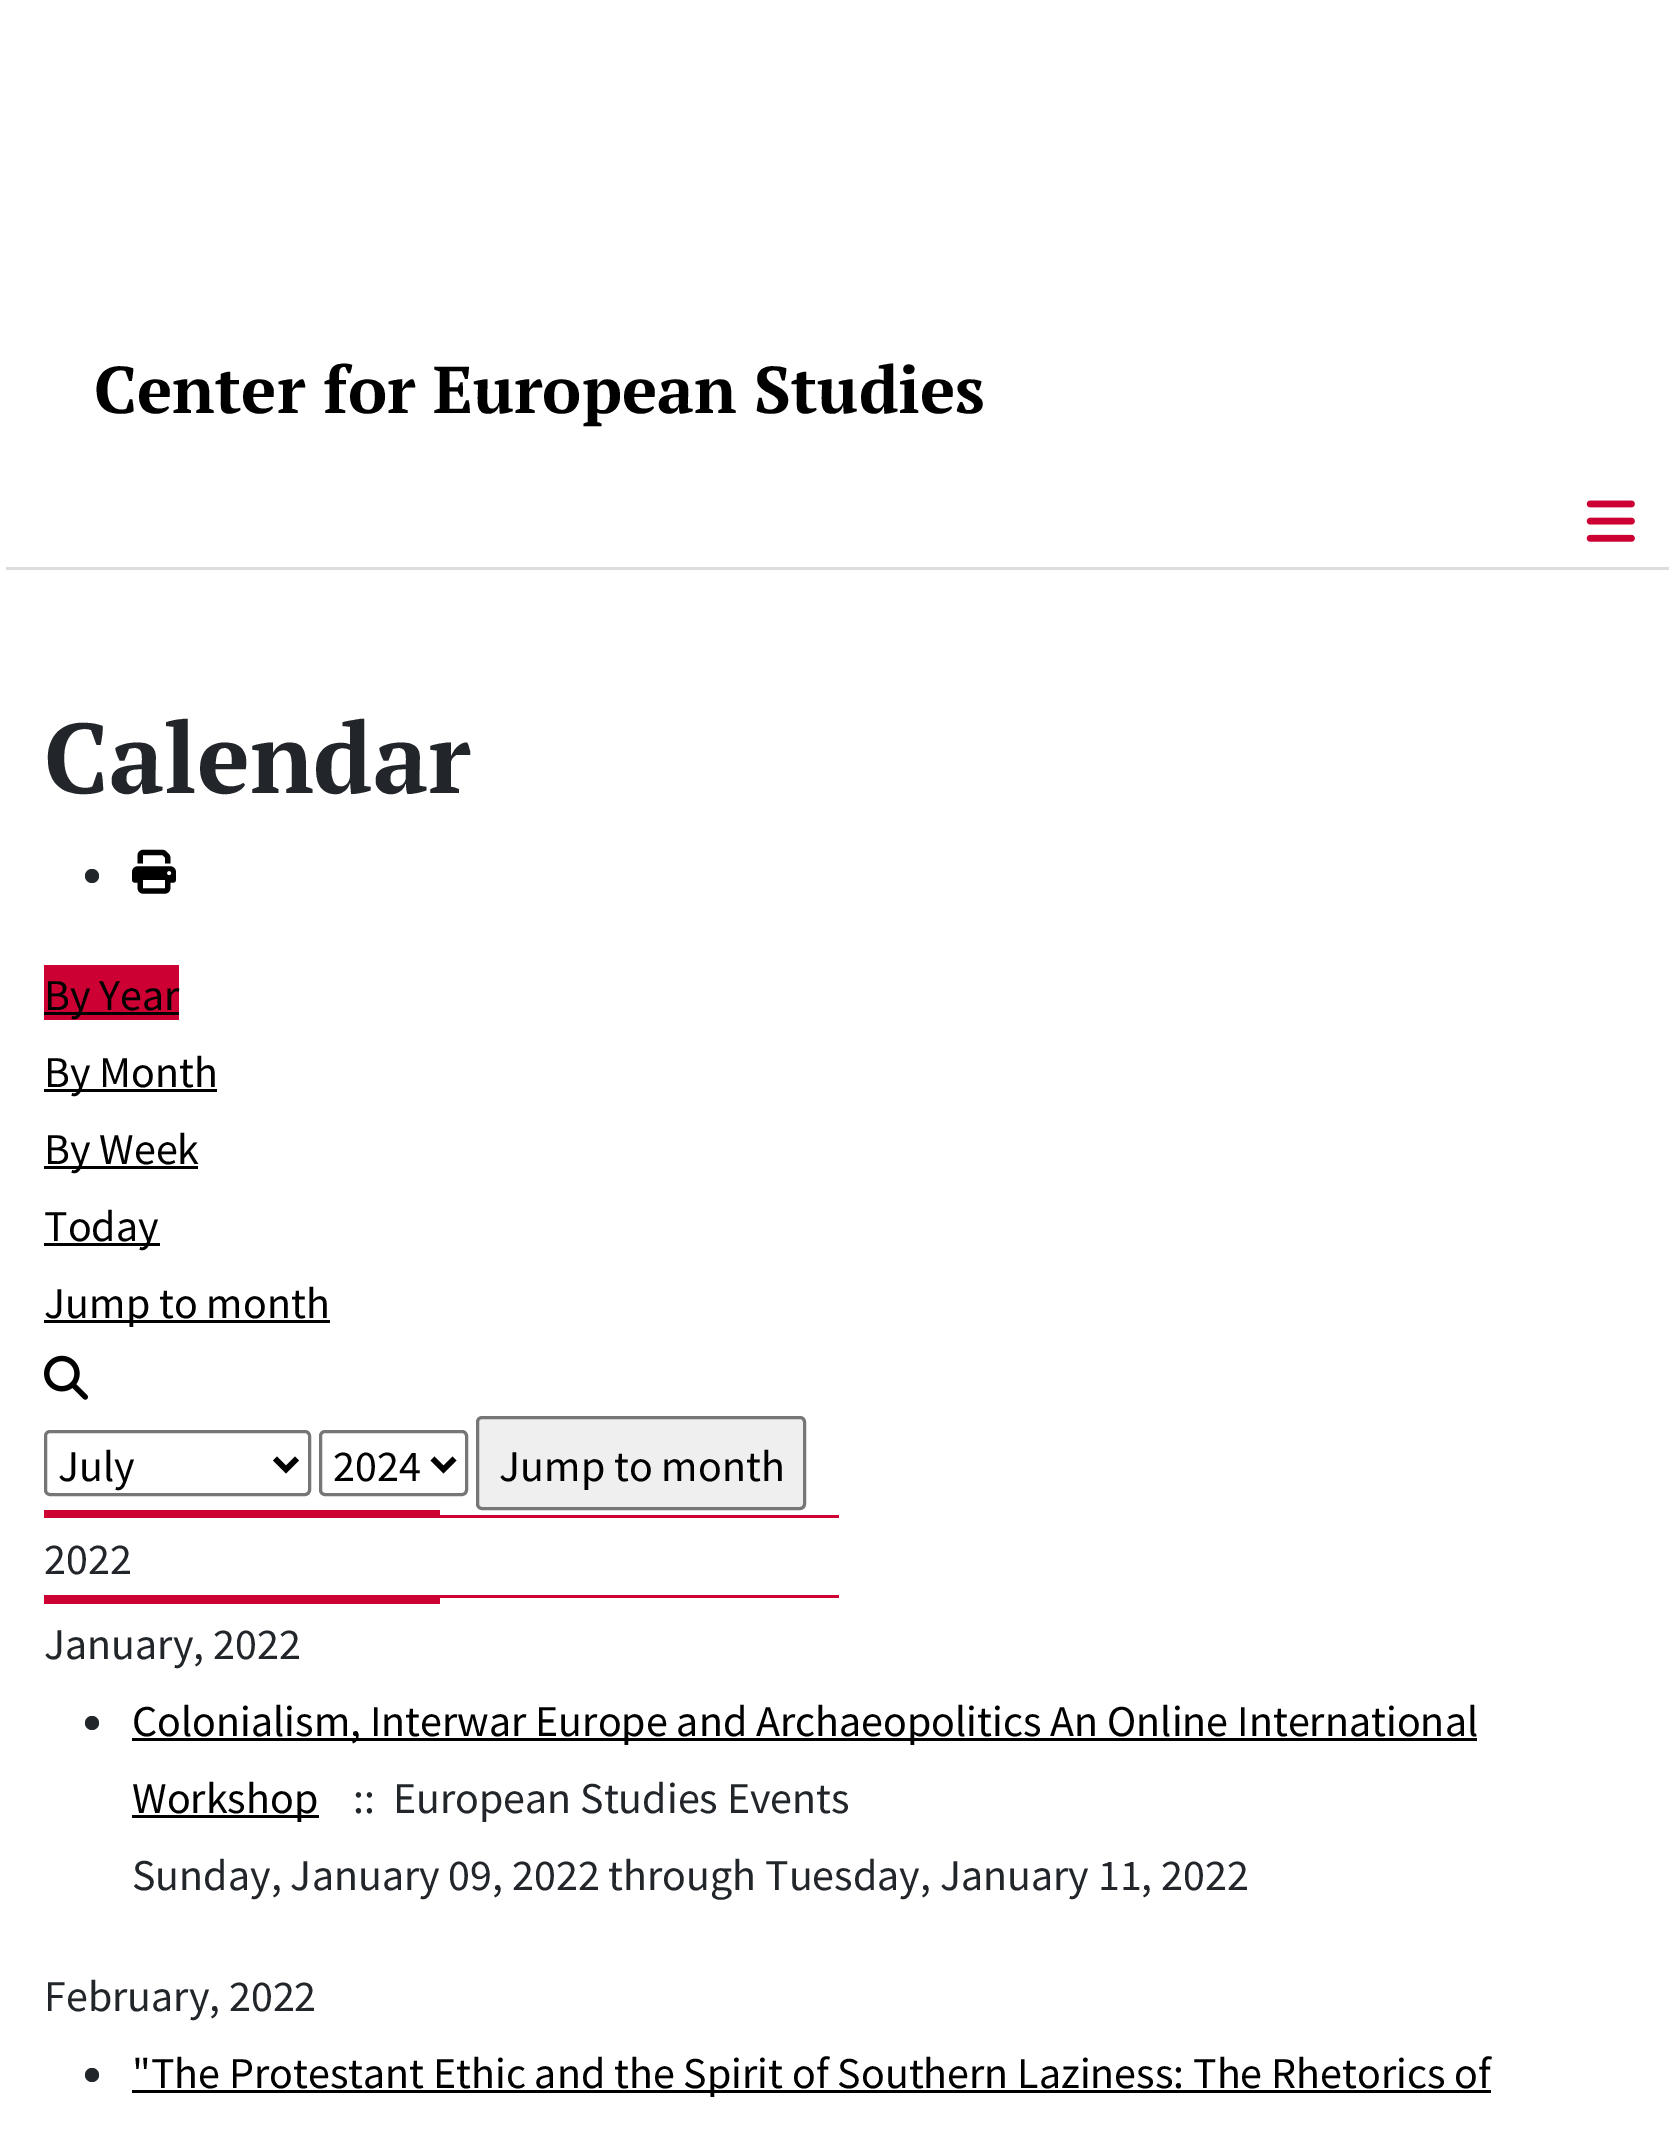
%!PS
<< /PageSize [1674 2136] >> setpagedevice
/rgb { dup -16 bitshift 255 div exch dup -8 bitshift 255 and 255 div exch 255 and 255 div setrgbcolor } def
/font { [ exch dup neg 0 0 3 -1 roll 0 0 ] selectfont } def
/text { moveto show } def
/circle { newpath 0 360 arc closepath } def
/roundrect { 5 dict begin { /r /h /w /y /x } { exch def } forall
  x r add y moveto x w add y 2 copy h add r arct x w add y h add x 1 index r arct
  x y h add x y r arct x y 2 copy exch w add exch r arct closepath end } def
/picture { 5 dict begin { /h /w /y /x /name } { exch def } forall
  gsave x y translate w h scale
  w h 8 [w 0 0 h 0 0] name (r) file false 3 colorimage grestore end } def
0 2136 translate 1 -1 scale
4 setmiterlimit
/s1 { /PTSerif-Bold 66 font 16#000000 rgb } def
/s2 { /PTSerif-Bold 99 font 16#22262A rgb } def
/s3 { /SourceSansPro-Regular 44 font 16#000000 rgb } def
/s4 { /SourceSansPro-Regular 44 font 16#22262A rgb } def
16#FFFFFF rgb
0 0 1674 2136 rectfill
s1
(Center for European Studies) 94 413 text
16#DDDDDD rgb
6 567 1663 3 rectfill
(pic1.raw) 1586 500 49 42 picture
s2
(Calendar) 44 793 text
92 876 7 circle fill
(pic2.raw) 132 849 44 45 picture
16#CC0033 rgb
44 965 135 55 rectfill
16#000000 rgb
44 1012 135 3 rectfill
s3
(By Year) 44 1010 text
44 1089 173 3 rectfill
(By Month) 44 1087 text
44 1166 154 3 rectfill
(By Week) 44 1164 text
44 1243 116 3 rectfill
(Today) 44 1241 text
44 1320 286 3 rectfill
(Jump to month) 44 1318 text
(pic3.raw) 44 1355 44 45 picture
16#767676 rgb
3 setlinewidth
45.5 1431.5 264 63 4.5 roundrect stroke
16#000000 rgb
5.5 setlinewidth
275 1458.5 moveto 286 1469.5 lineto 297 1458.5 lineto stroke
(July) 58 1481 text
16#767676 rgb
3 setlinewidth
320.5 1431.5 146 63 4.5 roundrect stroke
16#000000 rgb
5.5 setlinewidth
432.5 1458.5 moveto 443.5 1469.5 lineto 454.5 1458.5 lineto stroke
(2024) 333 1481 text
16#EFEFEF rgb
477.5 1417.5 327 91 4.5 roundrect gsave fill grestore
16#767676 rgb
3 setlinewidth
stroke
s3
(Jump to month) 499 1481 text
16#CC0033 rgb
44 1510 396 5 rectfill
44 1515 795 3 rectfill
44 1595 795 3 rectfill
s4
(2022) 44 1574 text
16#CC0033 rgb
44 1598 396 6 rectfill
s4
(January, 2022) 44 1659 text
92 1723 7 circle fill
16#000000 rgb
132 1738 1345 3 rectfill
(Colonialism, Interwar Europe and Archaeopolitics An Online International) 132 1736 text
132 1815 187 3 rectfill
(Workshop) 132 1813 text
s4
(::  European Studies Events) 353 1813 text
(Sunday, January 09, 2022 through Tuesday, January 11, 2022) 132 1890 text
(February, 2022) 44 2011 text
92 2075 7 circle fill
16#000000 rgb
132 2090 1359 3 rectfill
("The Protestant Ethic and the Spirit of Southern Laziness: The Rhetorics of) 132 2088 text
showpage
